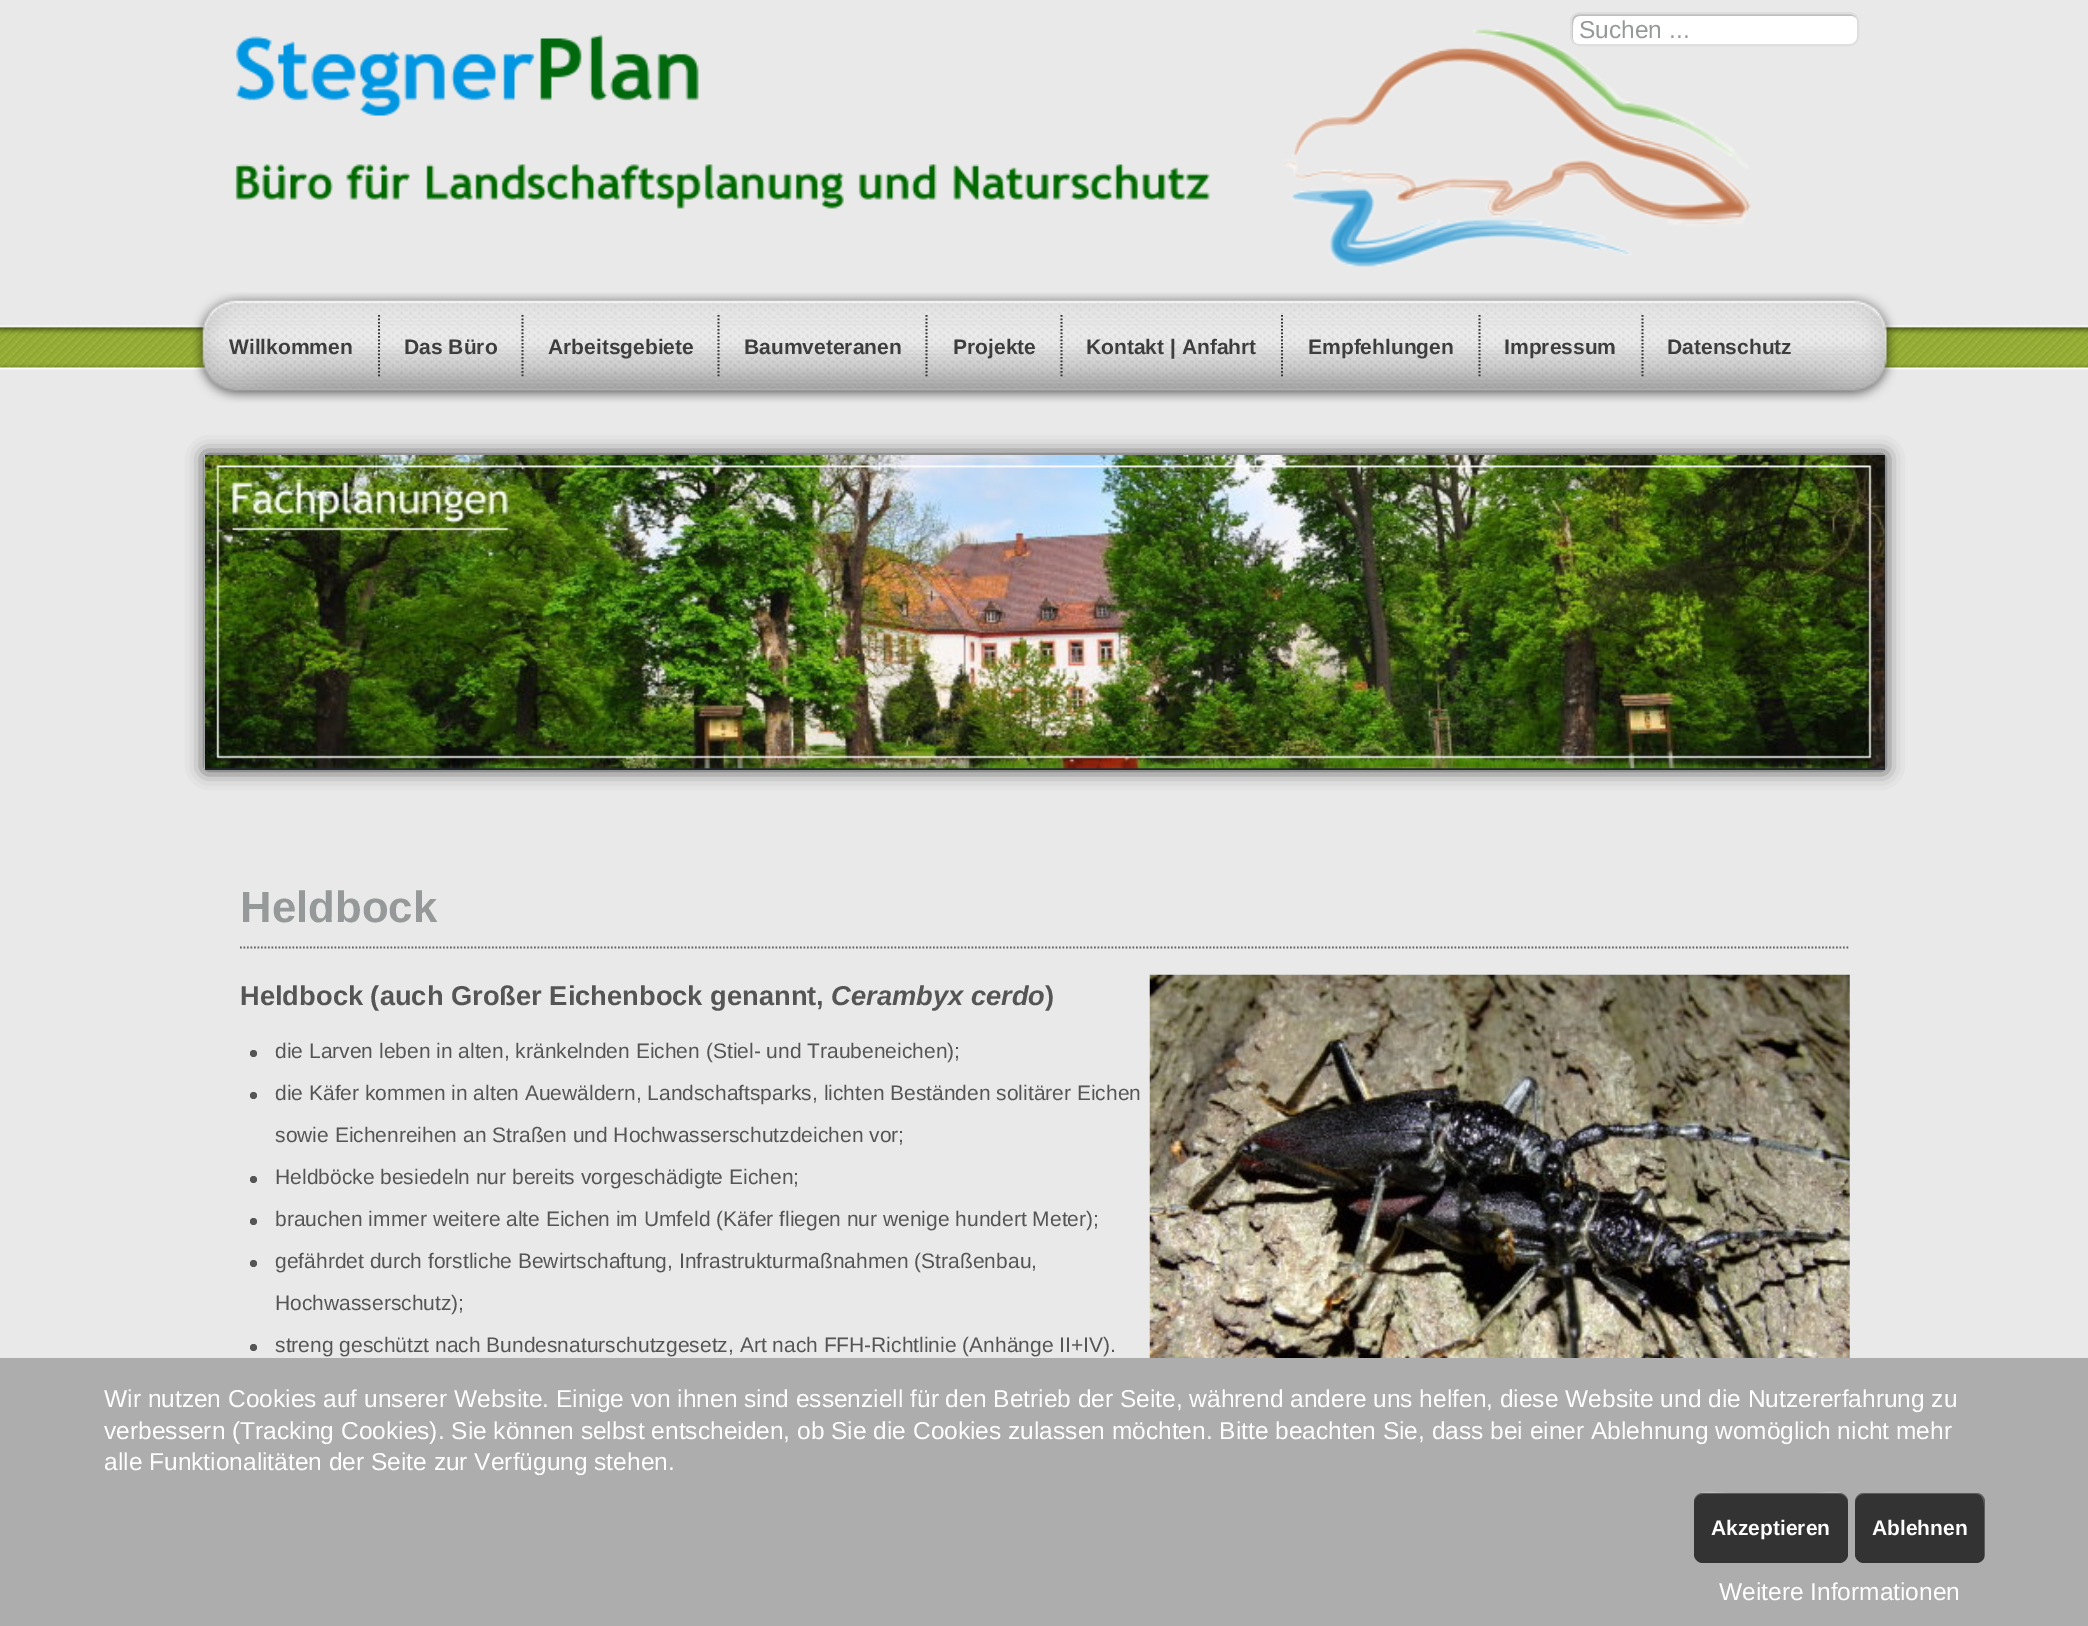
%!PS
<< /PageSize [2088 1626] /PageUsesTransparency true >> setpagedevice
/rgb { dup -16 bitshift 255 div exch dup -8 bitshift 255 and 255 div exch 255 and 255 div setrgbcolor } def
/font { [ exch dup neg 0 0 3 -1 roll 0 0 ] selectfont } def
/text { moveto show } def
/alpha { dup .setfillconstantalpha .setstrokeconstantalpha } def
/circle { newpath 0 360 arc closepath } def
/roundrect { 5 dict begin { /r /h /w /y /x } { exch def } forall
  x r add y moveto x w add y 2 copy h add r arct x w add y h add x 1 index r arct
  x y h add x y r arct x y 2 copy exch w add exch r arct closepath end } def
/shadow { 12 dict begin { /a /b /q /h /w /y /x } { exch def } forall gsave /was 0 def
  9 -2 -9 { dup b mul 4 div /e exch def 1 sub .425 mul 2.718 exch exp 1 add a .99 .min exch div /now exch def
    1 1 now sub 1 was sub div sub alpha /was now def
    w h .min e 2 mul add 0 gt { x e sub y e sub w e 2 mul add h e 2 mul add
      q e add b .6 mul add w h .min 2 div e add .min 0 .max roundrect fill } if } for grestore end } def
/picture { 5 dict begin { /h /w /y /x /name } { exch def } forall
  gsave x y translate w h scale
  w h 8 [w 0 0 h 0 0] name (r) file false 3 colorimage grestore end } def
0 .pushpdf14devicefilter
0 1626 translate 1 -1 scale
4 setmiterlimit
/s1 { /LiberationSans-Regular 24.5 font 16#969999 rgb } def
/s2 { /LiberationSans-Bold 21 font 16#3D3D3D rgb } def
/s3 { /LiberationSans-Bold 43.75 font 16#969999 rgb } def
/s4 { /LiberationSans-Bold 27.3 font 16#555555 rgb } def
/s5 { /LiberationSans-BoldItalic 27.3 font 16#555555 rgb } def
/s6 { /LiberationSans-Regular 21 font 16#555555 rgb } def
/s7 { /LiberationSans-Regular 24.5 font 16#FFFFFF rgb } def
/s8 { /LiberationSans-Bold 21 font 16#FFFFFF rgb } def
16#E9E9E9 rgb
0 0 2088 1626 rectfill
(pic1.raw) 0 292 2088 111 picture
(pic2.raw) 235 29 1516 238 picture
16#FFFFFF rgb
1570 12 289 34 9 roundrect fill
16#C0C0C0 rgb
1580 16 moveto 1852 16 lineto 1854 16 1855 17 1857 19 curveto 1856 16 1853 14 1850 14 curveto 1579 14 lineto 1575 14 1572 17 1572 21 curveto 1572 37 lineto 1572 39 1573 41 1574 42 curveto 1572 38 1573 34 1573 30 curveto 1573 25 1572 16 1580 16 curveto closepath fill
16#DEDEDE rgb
2 setlinewidth
1571 13 287 32 8 roundrect stroke
s1
(Suchen ...) 1579 38 text
s2
(Willkommen) 229 354 text
16#333333 rgb
1.8 setlinewidth
[1.75 1.75] 0 setdash
379 315 moveto 379 378 lineto stroke
s2
(Das Büro) 404 354 text
16#333333 rgb
522.5 315 moveto 522.5 378 lineto stroke
s2
(Arbeitsgebiete) 548 354 text
16#333333 rgb
718.5 315 moveto 718.5 378 lineto stroke
s2
(Baumveteranen) 744 354 text
16#333333 rgb
926.5 315 moveto 926.5 378 lineto stroke
s2
(Projekte) 953 354 text
16#333333 rgb
1061.5 315 moveto 1061.5 378 lineto stroke
s2
(Kontakt | Anfahrt) 1086 354 text
16#333333 rgb
1282 315 moveto 1282 378 lineto stroke
s2
(Empfehlungen) 1308 354 text
16#333333 rgb
1479.5 315 moveto 1479.5 378 lineto stroke
s2
(Impressum) 1504 354 text
16#333333 rgb
1642.5 315 moveto 1642.5 378 lineto stroke
s2
(Datenschutz) 1667 354 text
16#333333 rgb
205 455 1680 315 0 9 1 shadow
16#202834 rgb
205 455 1680 315 rectfill
(pic3.raw) 204 455 1681 314 picture
16#666666 rgb
240 947.5 moveto 1850 947.5 lineto stroke
s3
(Heldbock) 240 922 text
s4
(Heldbock \(auch Großer Eichenbock genannt,) 240 1005 text
s5
(Cerambyx cerdo) 831 1005 text
s4
(\)) 1045 1005 text
(pic4.raw) 1149 974 701 384 picture
253.5 1053.5 3.5 circle fill
s6
(die Larven leben in alten, kränkelnden Eichen \(Stiel- und Traubeneichen\);) 275 1058 text
253.5 1095.5 3.5 circle fill
(die Käfer kommen in alten Auewäldern, Landschaftsparks, lichten Beständen solitärer Eichen) 275 1100 text
(sowie Eichenreihen an Straßen und Hochwasserschutzdeichen vor;) 275 1142 text
253.5 1179.5 3.5 circle fill
(Heldböcke besiedeln nur bereits vorgeschädigte Eichen;) 275 1184 text
253.5 1221.5 3.5 circle fill
(brauchen immer weitere alte Eichen im Umfeld \(Käfer fliegen nur wenige hundert Meter\);) 275 1226 text
253.5 1263.5 3.5 circle fill
(gefährdet durch forstliche Bewirtschaftung, Infrastrukturmaßnahmen \(Straßenbau,) 275 1268 text
(Hochwasserschutz\);) 275 1310 text
253.5 1347.5 3.5 circle fill
(streng geschützt nach Bundesnaturschutzgesetz, Art nach FFH-Richtlinie \(Anhänge II+IV\).) 275 1352 text
16#ADADAD rgb
0 1358 2088 268 rectfill
s7
(Wir nutzen Cookies auf unserer Website. Einige von ihnen sind essenziell für den Betrieb der Seite, während andere uns helfen, diese Website und die Nutzererfahrung zu) 104 1407 text
(verbessern \(Tracking Cookies\). Sie können selbst entscheiden, ob Sie die Cookies zulassen möchten. Bitte beachten Sie, dass bei einer Ablehnung womöglich nicht mehr) 104 1439 text
(alle Funktionalitäten der Seite zur Verfügung stehen.) 104 1470 text
16#333333 rgb
1694 1493 154 70 9 roundrect fill
0.2 alpha
16#FFFFFF rgb
1703 1494 moveto 1839 1494 lineto 1844 1494 1848 1498 1848 1503 curveto 1848 1487 1825 1493 1816 1493 curveto 1726 1493 lineto 1717 1493 1694 1487 1694 1503 curveto 1694 1498 1698 1494 1703 1494 curveto closepath fill
1 alpha
s8
(Akzeptieren) 1711 1535 text
16#333333 rgb
1855 1493 130 70 9 roundrect fill
0.2 alpha
16#FFFFFF rgb
1864 1494 moveto 1976 1494 lineto 1985 1494 1984 1506 1984 1512 curveto 1984 1559 lineto 1985 1557 1985 1556 1985 1554 curveto 1985 1502 lineto 1985 1497 1981 1493 1976 1493 curveto 1864 1493 lineto 1859 1493 1855 1497 1855 1502 curveto 1855 1503 lineto 1855 1498 1859 1494 1864 1494 curveto closepath fill
1 alpha
(Ablehnen) 1872 1535 text
s7
(Weitere Informationen) 1719 1600 text
.poppdf14devicefilter showpage
